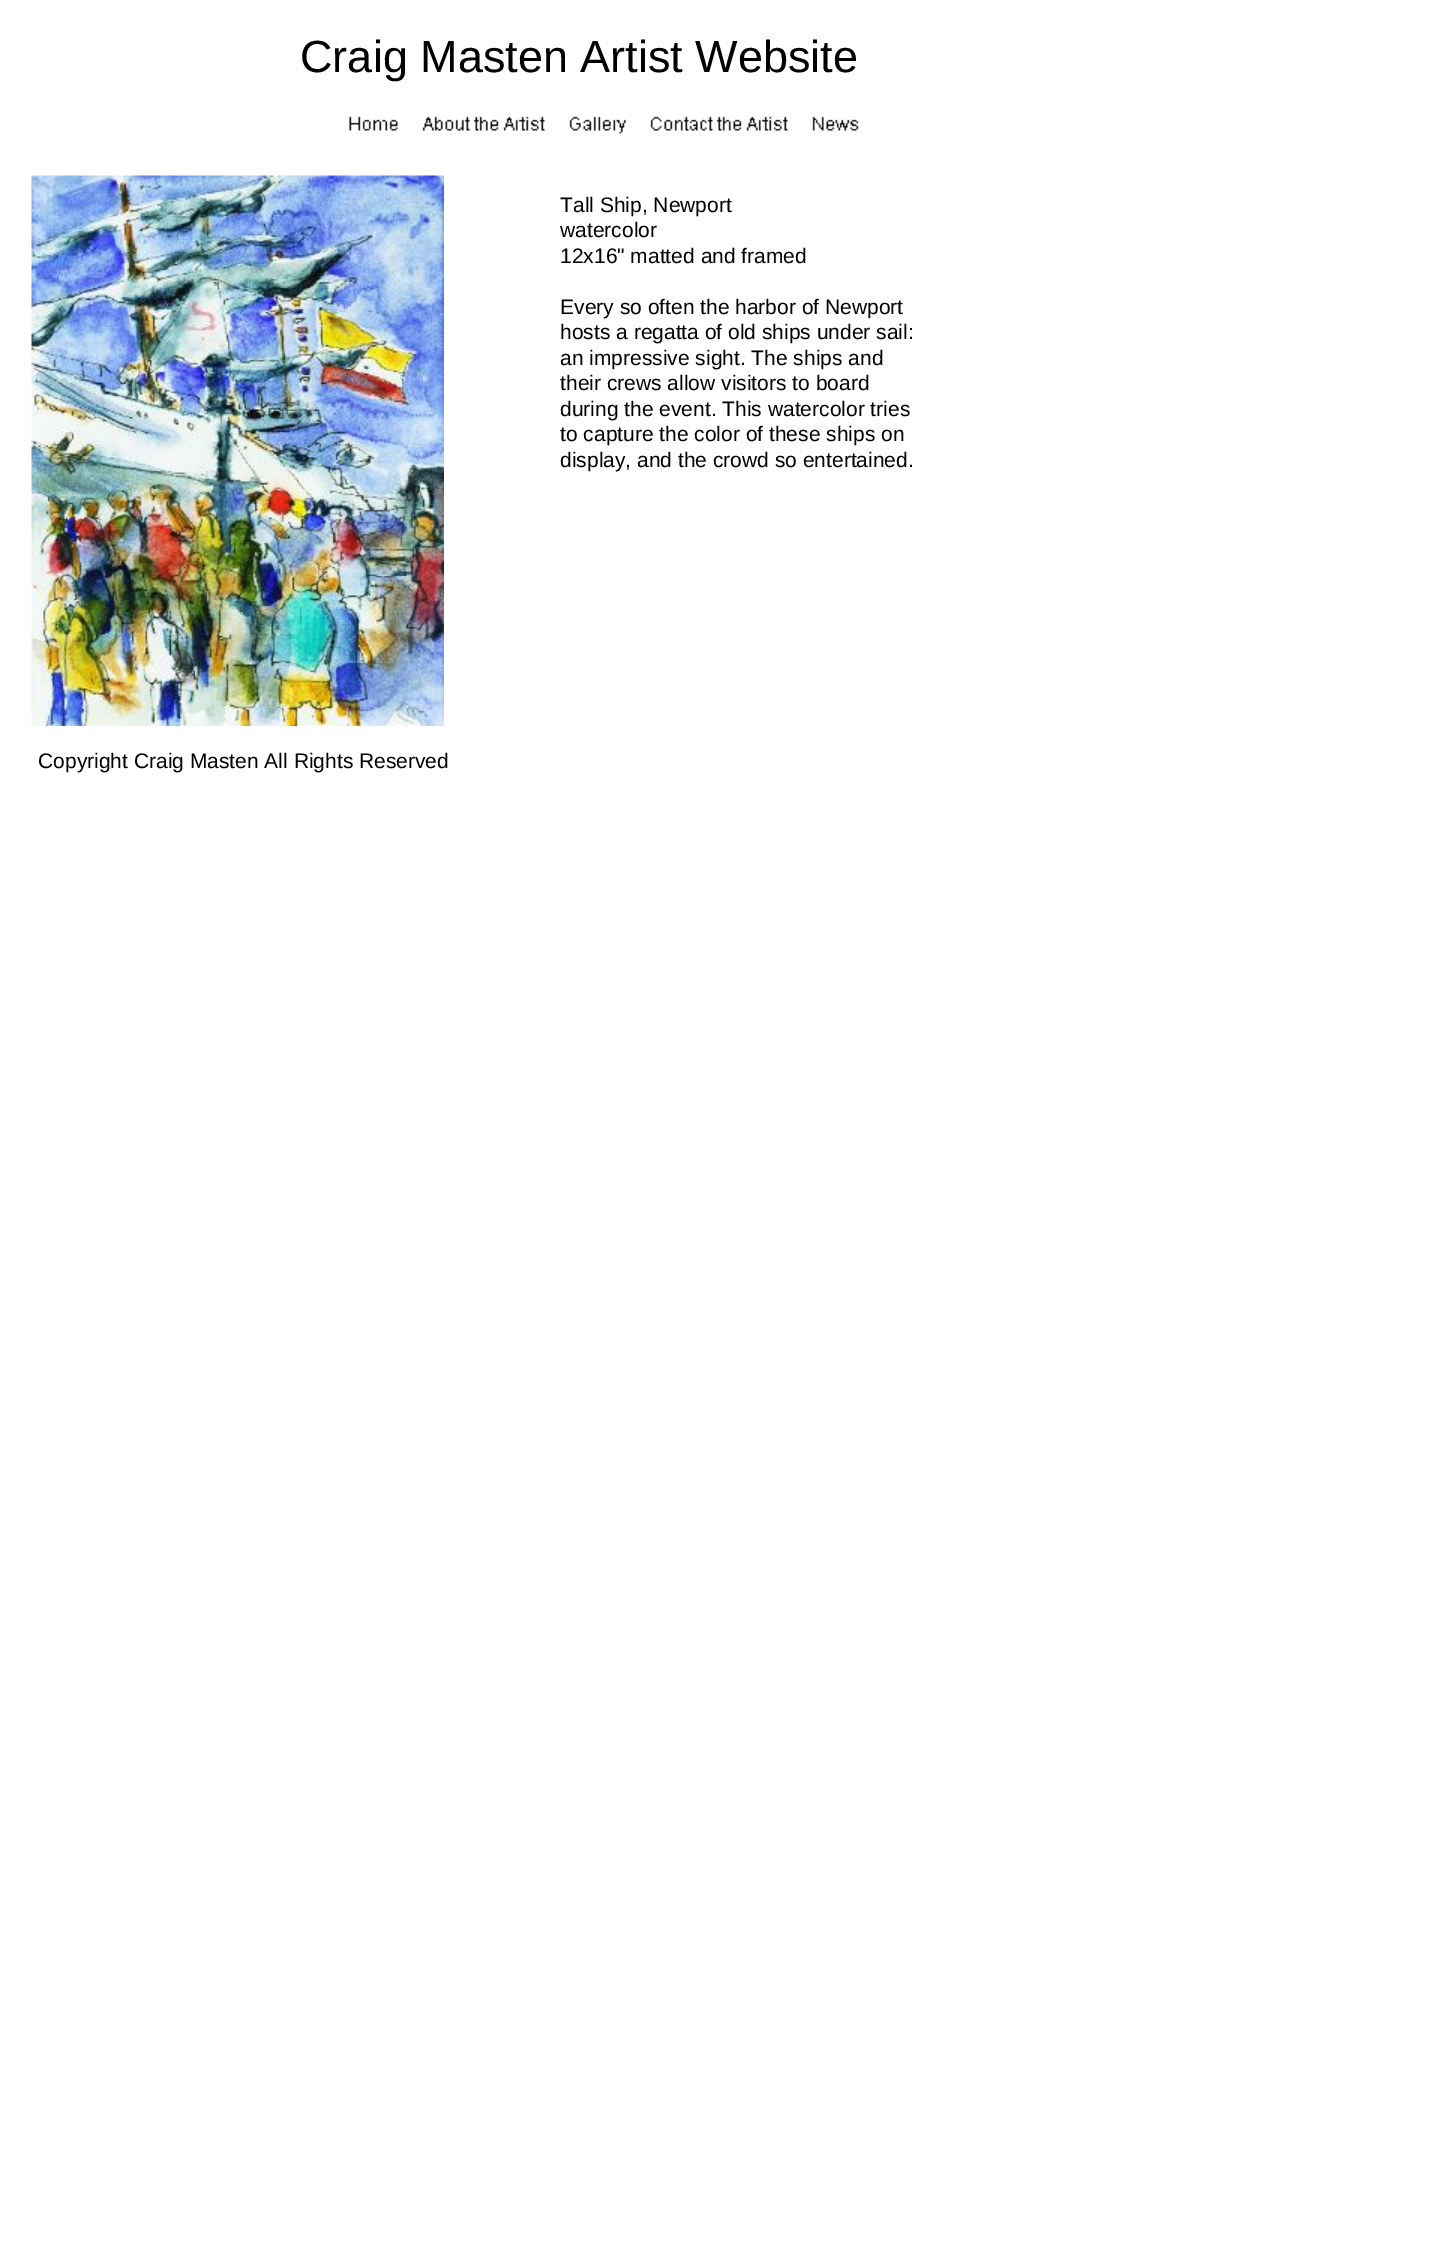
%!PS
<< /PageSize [1449 2258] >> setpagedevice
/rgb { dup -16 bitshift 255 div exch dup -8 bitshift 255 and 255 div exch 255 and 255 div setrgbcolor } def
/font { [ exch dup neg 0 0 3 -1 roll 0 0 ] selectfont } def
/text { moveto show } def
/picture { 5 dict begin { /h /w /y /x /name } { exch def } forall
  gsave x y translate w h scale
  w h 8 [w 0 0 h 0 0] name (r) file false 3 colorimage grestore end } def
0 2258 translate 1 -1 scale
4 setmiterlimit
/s1 { /LiberationSans-Regular 45 font 16#000000 rgb } def
/s2 { /LiberationSans-Regular 21 font 16#000000 rgb } def
16#FFFFFF rgb
0 0 1449 2258 rectfill
s1
(Craig Masten Artist Website) 300 72 text
(pic1.raw) 349 116 49 15 picture
(pic2.raw) 422 116 123 15 picture
(pic3.raw) 569 116 57 18 picture
(pic4.raw) 650 116 138 15 picture
(pic5.raw) 812 116 47 15 picture
(pic6.raw) 31 175 413 551 picture
s2
(Tall Ship, Newport) 560 212 text
(watercolor) 560 237 text
(12x16" matted and framed) 560 263 text
(Every so often the harbor of Newport) 560 314 text
(hosts a regatta of old ships under sail:) 560 339 text
(an impressive sight. The ships and) 560 365 text
(their crews allow visitors to board) 560 390 text
(during the event. This watercolor tries) 560 416 text
(to capture the color of these ships on) 560 441 text
(display, and the crowd so entertained.) 560 467 text
(Copyright Craig Masten All Rights Reserved) 38 768 text
showpage
